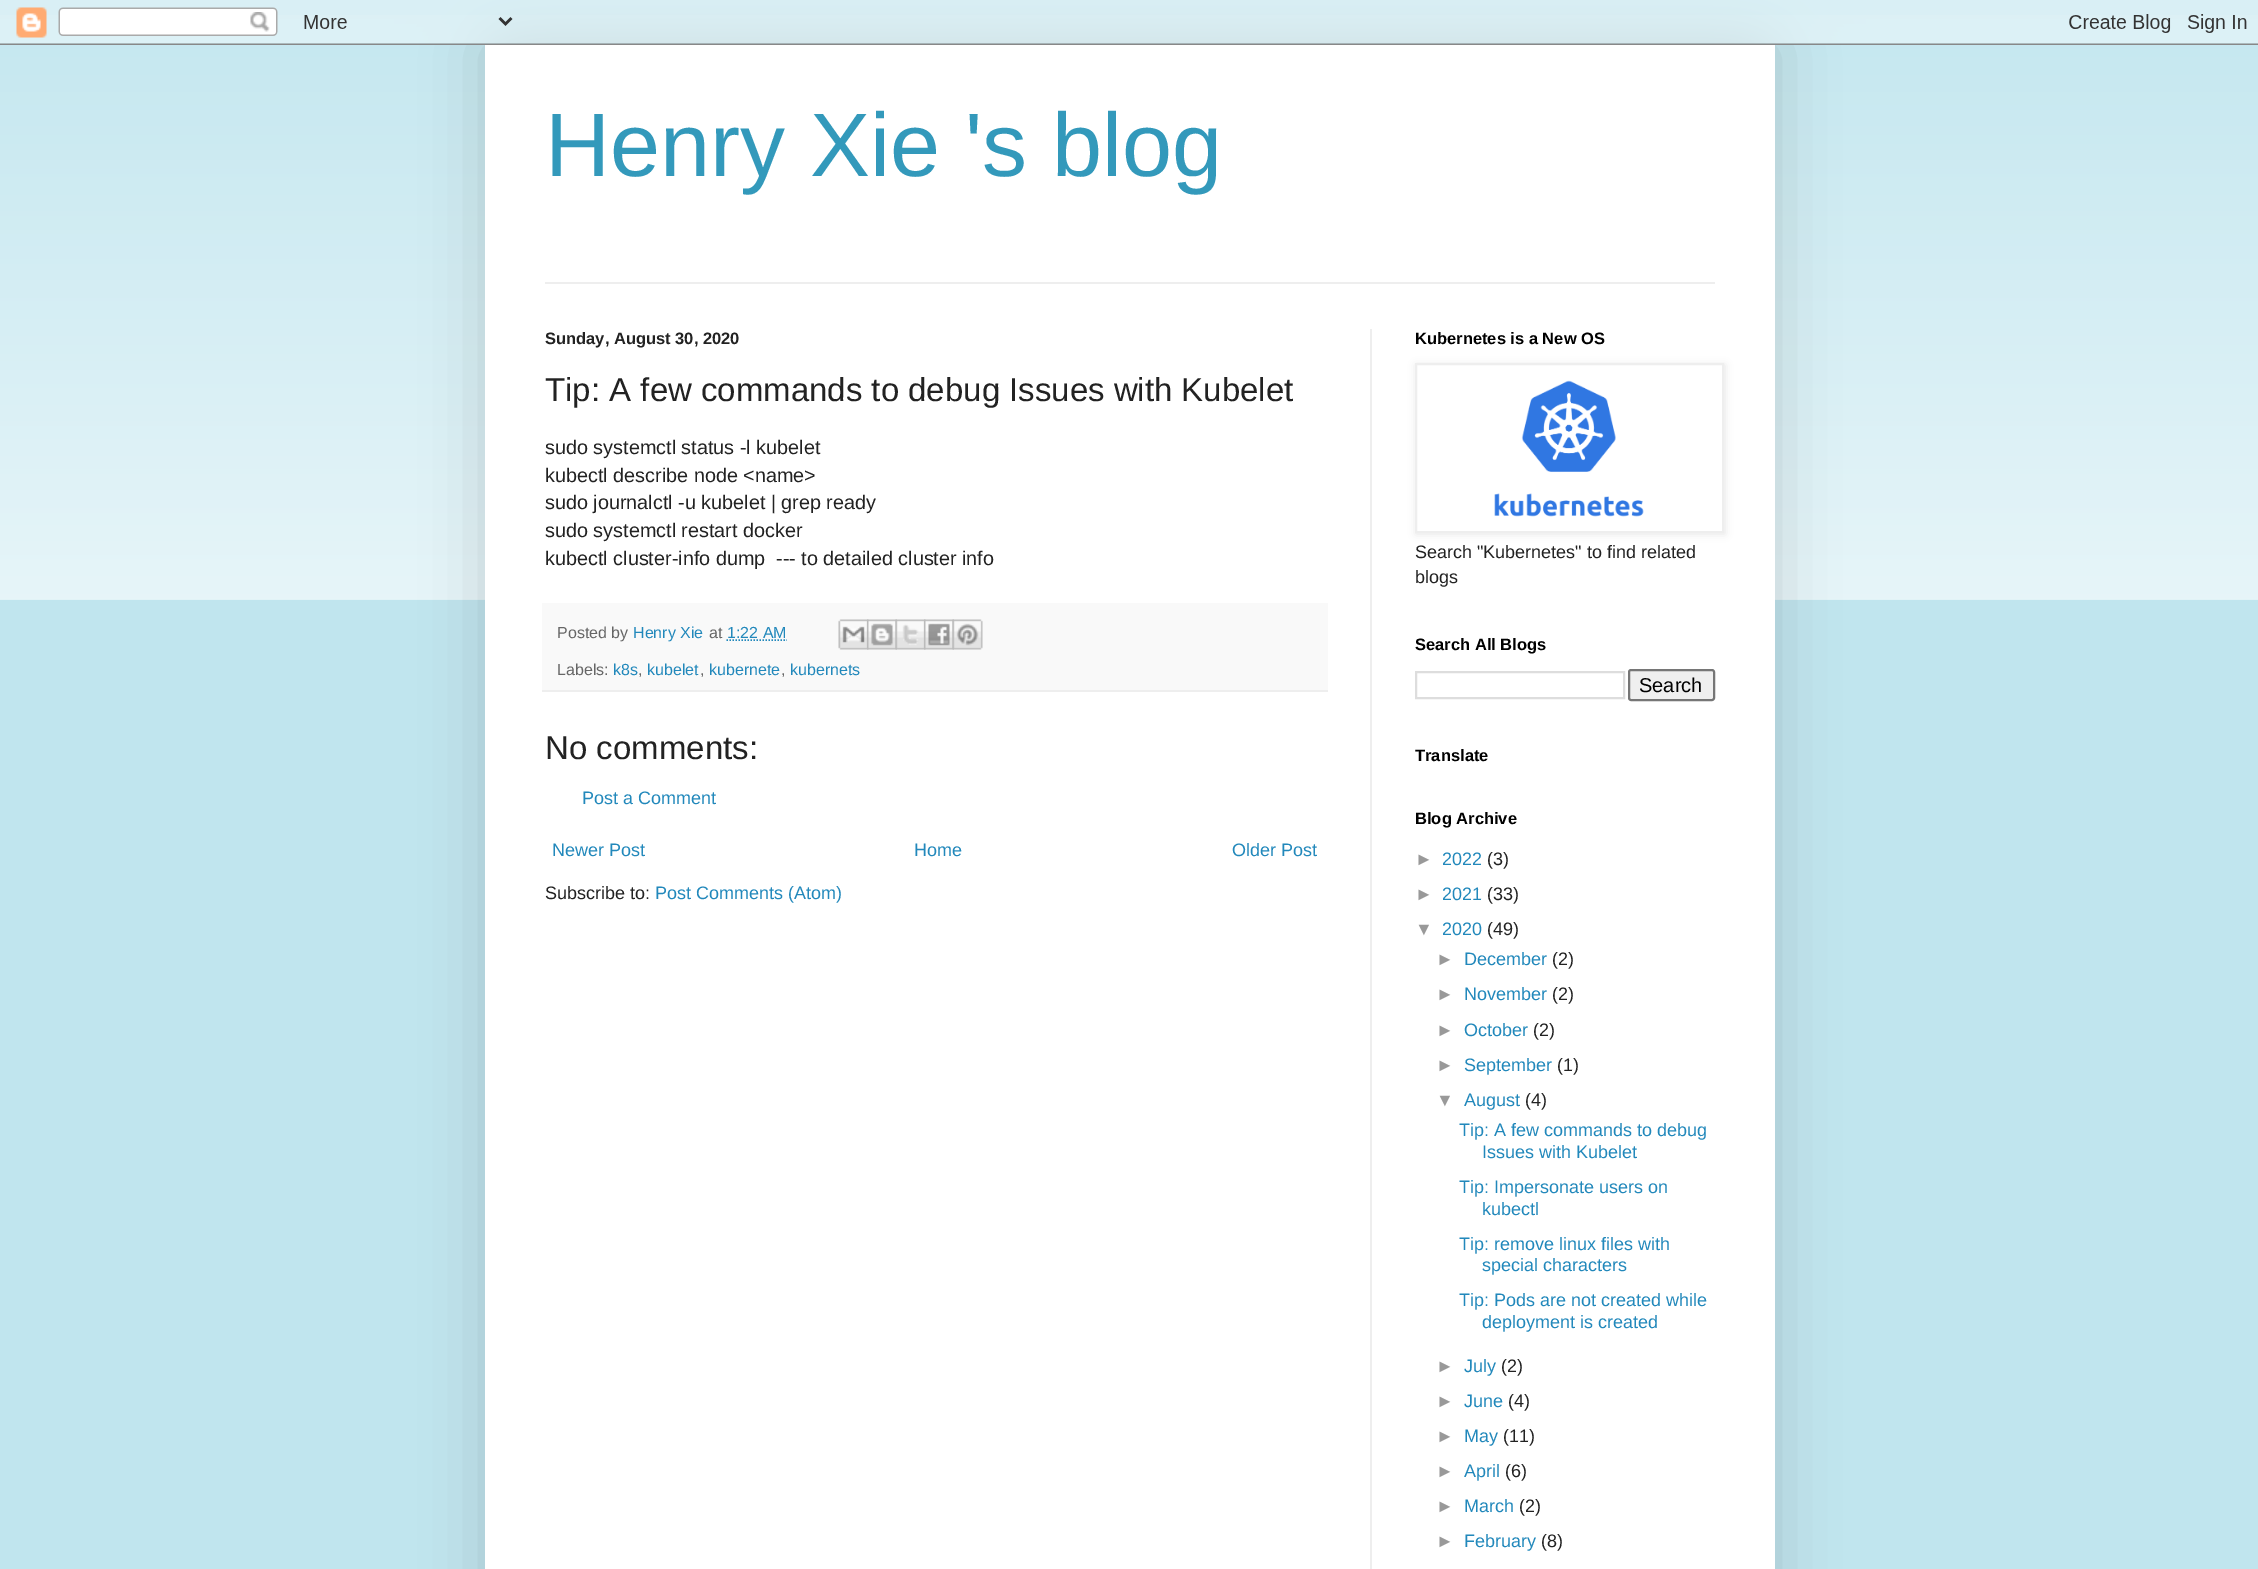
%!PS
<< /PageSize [2258 1569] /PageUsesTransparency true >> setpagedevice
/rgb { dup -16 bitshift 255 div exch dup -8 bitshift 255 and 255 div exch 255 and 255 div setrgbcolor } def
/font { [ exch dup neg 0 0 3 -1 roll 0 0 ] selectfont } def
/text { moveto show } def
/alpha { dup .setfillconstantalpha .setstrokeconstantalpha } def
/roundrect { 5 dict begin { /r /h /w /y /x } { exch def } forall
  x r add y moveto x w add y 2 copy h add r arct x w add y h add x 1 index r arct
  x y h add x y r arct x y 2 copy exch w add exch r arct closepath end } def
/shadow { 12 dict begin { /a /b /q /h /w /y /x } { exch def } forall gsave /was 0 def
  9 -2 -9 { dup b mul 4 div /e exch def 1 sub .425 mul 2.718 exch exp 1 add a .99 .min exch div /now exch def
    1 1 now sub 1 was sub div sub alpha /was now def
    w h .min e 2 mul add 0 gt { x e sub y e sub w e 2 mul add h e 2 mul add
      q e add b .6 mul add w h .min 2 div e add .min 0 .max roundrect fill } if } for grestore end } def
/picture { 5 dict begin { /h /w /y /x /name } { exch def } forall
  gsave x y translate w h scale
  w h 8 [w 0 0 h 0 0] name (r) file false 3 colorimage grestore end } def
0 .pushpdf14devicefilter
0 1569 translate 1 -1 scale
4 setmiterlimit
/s1 { /LiberationSans-Regular 90 font 16#3399BB rgb } def
/s2 { /LiberationSans-Bold 16.5 font 16#222222 rgb } def
/s3 { /LiberationSans-Regular 33 font 16#222222 rgb } def
/s4 { /LiberationSans-Regular 19.8 font 16#222222 rgb } def
/s5 { /LiberationSans-Regular 16 font 16#666666 rgb } def
/s6 { /LiberationSans-Regular 16 font 16#2288BB rgb } def
/s7 { /LiberationSans-Regular 18 font 16#2288BB rgb } def
/s8 { /LiberationSans-Regular 18 font 16#222222 rgb } def
/s9 { /LiberationSans-Bold 16.5 font 16#000000 rgb } def
/s10 { /LiberationSans-Regular 20 font 16#000000 rgb } def
/s11 { /LiberationSans-Regular 18 font 16#999999 rgb } def
16#C0E5EE rgb
0 0 2258 1569 rectfill
(pic2.raw) 0 15 2258 585 picture
16#000000 rgb
485 45 1290 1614 0 30 0.15 shadow
(pic1.raw) 0 0 2258 45 picture
16#FFFFFF rgb
485 45 1290 1524 rectfill
s1
(Henry Xie 's blog) 545 176 text
16#EEEEEE rgb
545 282 1170 2 rectfill
1370 329 2 1240 rectfill
s2
(Sunday, August 30, 2020) 545 344 text
s3
(Tip: A few commands to debug Issues with Kubelet) 545 401 text
s4
(sudo systemctl status -l kubelet) 545 454 text
(kubectl describe node <name>) 545 482 text
(sudo journalctl -u kubelet | grep ready) 545 509 text
(sudo systemctl restart docker) 545 537 text
(kubectl cluster-info dump  --- to detailed cluster info) 545 565 text
16#F9F9F9 rgb
542 603 786 87 rectfill
16#EEEEEE rgb
542 690 786 2 rectfill
s5
(Posted by) 557 638 text
s6
(Henry Xie) 633 638 text
s5
(at) 709 638 text
s6
(1:22 AM) 727 638 text
1.5 setlinewidth
[1.5 1.5] 0 setdash
726.5 640 moveto 787 640 lineto stroke
(pic3.raw) 838 619 31 31 picture
(pic4.raw) 867 619 30 31 picture
(pic5.raw) 895 619 31 31 picture
(pic6.raw) 924 619 30 31 picture
(pic7.raw) 952 619 31 31 picture
s5
(Labels:) 557 675 text
s6
(k8s) 613 675 text
s5
(,) 638 675 text
s6
(kubelet) 647 675 text
s5
(,) 700 675 text
s6
(kubernete) 709 675 text
s5
(,) 781 675 text
s6
(kubernets) 790 675 text
s3
(No comments:) 545 759 text
s7
(Post a Comment) 582 804 text
(Newer Post) 552 856 text
(Home) 914 856 text
(Older Post) 1232 856 text
s8
(Subscribe to:) 545 899 text
s7
(Post Comments \(Atom\)) 655 899 text
s9
(Kubernetes is a New OS) 1415 344 text
1416 365 309 169 0 4 0.1 shadow
16#FFFFFF rgb
1416 364 moveto 1723 364 lineto 1723 532 lineto 1416 532 lineto closepath gsave fill grestore
16#EEEEEE rgb
2 setlinewidth
[] 0 setdash
stroke
(pic8.raw) 1494 380 150 137 picture
s8
(Search "Kubernetes" to find related) 1415 558 text
(blogs) 1415 583 text
s9
(Search All Blogs) 1415 650 text
16#DDDDDD rgb
1416 672 208 26 rectstroke
16#EFEFEF rgb
1629 670 85 30 2 roundrect gsave fill grestore
16#767676 rgb
stroke
s10
(Search) 1639 692 text
s9
(Translate) 1415 761 text
(Blog Archive) 1415 824 text
s11
(►) 1415 865 text
s7
(2022) 1442 865 text
s8
(\(3\)) 1487 865 text
s11
(►) 1415 900 text
s7
(2021) 1442 900 text
s8
(\(33\)) 1487 900 text
s11
(▼) 1415 935 text
s7
(2020) 1442 935 text
s8
(\(49\)) 1487 935 text
s11
(►) 1436 965 text
s7
(December) 1464 965 text
s8
(\(2\)) 1552 965 text
s11
(►) 1436 1000 text
s7
(November) 1464 1000 text
s8
(\(2\)) 1552 1000 text
s11
(►) 1436 1036 text
s7
(October) 1464 1036 text
s8
(\(2\)) 1533 1036 text
s11
(►) 1436 1071 text
s7
(September) 1464 1071 text
s8
(\(1\)) 1557 1071 text
s11
(▼) 1436 1106 text
s7
(August) 1464 1106 text
s8
(\(4\)) 1525 1106 text
s7
(Tip: A few commands to debug) 1459 1136 text
(Issues with Kubelet) 1482 1158 text
(Tip: Impersonate users on) 1459 1193 text
(kubectl) 1482 1215 text
(Tip: remove linux files with) 1459 1250 text
(special characters) 1482 1271 text
(Tip: Pods are not created while) 1459 1306 text
(deployment is created) 1482 1328 text
s11
(►) 1436 1372 text
s7
(July) 1464 1372 text
s8
(\(2\)) 1501 1372 text
s11
(►) 1436 1407 text
s7
(June) 1464 1407 text
s8
(\(4\)) 1508 1407 text
s11
(►) 1436 1442 text
s7
(May) 1464 1442 text
s8
(\(11\)) 1503 1442 text
s11
(►) 1436 1477 text
s7
(April) 1464 1477 text
s8
(\(6\)) 1505 1477 text
s11
(►) 1436 1512 text
s7
(March) 1464 1512 text
s8
(\(2\)) 1519 1512 text
s11
(►) 1436 1547 text
s7
(February) 1464 1547 text
s8
(\(8\)) 1541 1547 text
.poppdf14devicefilter showpage
